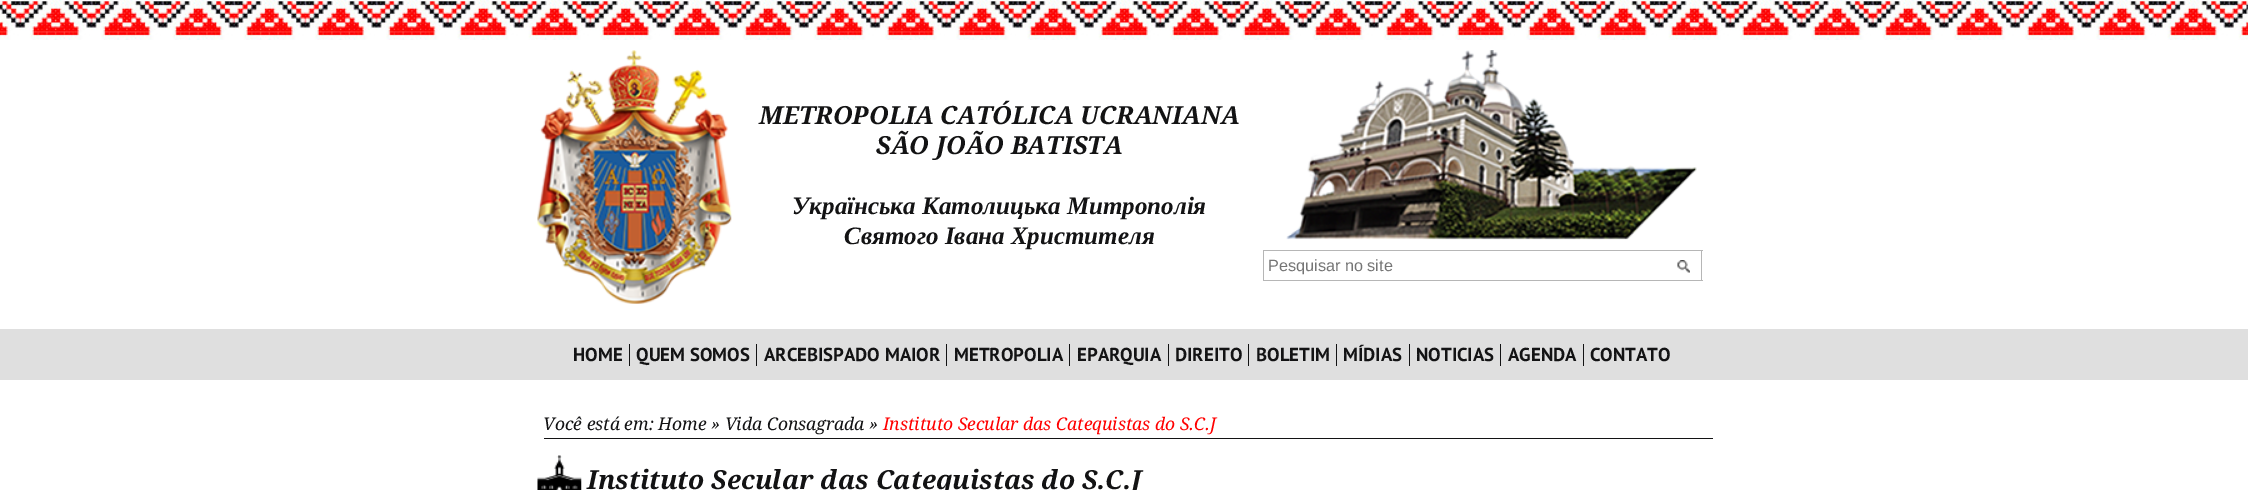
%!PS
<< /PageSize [2248 490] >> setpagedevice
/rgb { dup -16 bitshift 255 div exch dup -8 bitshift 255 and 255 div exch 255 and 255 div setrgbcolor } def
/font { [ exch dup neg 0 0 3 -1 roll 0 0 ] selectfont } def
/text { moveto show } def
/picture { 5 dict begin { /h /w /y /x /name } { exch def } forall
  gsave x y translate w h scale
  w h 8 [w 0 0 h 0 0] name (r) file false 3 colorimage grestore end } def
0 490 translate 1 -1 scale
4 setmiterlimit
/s1 { /DroidSerif-BoldItalic 25 font 16#131314 rgb } def
/s2 { /LiberationSerif-BoldItalic 25 font 16#131314 rgb } def
/s3 { /LiberationSans-Regular 16.25 font 16#757575 rgb } def
/s4 { /PTSans-Bold 18.75 font 16#131314 rgb } def
/s5 { /DroidSerif-Italic 17.5 font 16#131314 rgb } def
/s6 { /DroidSerif-Italic 17.5 font 16#FF0000 rgb } def
/s7 { /DroidSerif-BoldItalic 26.25 font 16#131314 rgb } def
16#FFFFFF rgb
0 0 2248 490 rectfill
(pic1.raw) 0 0 2248 40 picture
(pic2.raw) 537 50 195 254 picture
s1
(METROPOLIA CATÓLICA UCRANIANA) 759 124 text
(SÃO JOÃO BATISTA) 876 154 text
s2
(Українська Католицька Митрополія) 792 214 text
(Святого Івана Христителя) 844 244 text
(pic3.raw) 1286 50 411 190 picture
16#B6B6B6 rgb
1263 250 440 1 rectfill
1263 280 406 1 rectfill
1263 250 1 31 rectfill
s3
(Pesquisar no site) 1268 271 text
(pic4.raw) 1677 260 13 13 picture
16#B6B6B6 rgb
1701 250 1 31 rectfill
1665 280 38 1 rectfill
16#DFDFDF rgb
0 329 2248 51 rectfill
16#131314 rgb
629 344 1 22 rectfill
s4
(HOME) 573 361 text
756 344 1 22 rectfill
(QUEM SOMOS) 636 361 text
946 344 1 22 rectfill
(ARCEBISPADO MAIOR) 764 361 text
1069 344 1 22 rectfill
(METROPOLIA) 954 361 text
1168 344 1 22 rectfill
(EPARQUIA) 1077 361 text
1248 344 1 22 rectfill
(DIREITO) 1175 361 text
1336 344 1 22 rectfill
(BOLETIM) 1256 361 text
1409 344 1 22 rectfill
(MÍDIAS) 1343 361 text
1500 344 1 22 rectfill
(NOTICIAS) 1416 361 text
1583 344 1 22 rectfill
(AGENDA) 1508 361 text
(CONTATO) 1590 361 text
544 438 1169 1 rectfill
s5
(Você está em: Home » Vida Consagrada ») 543 430 text
s6
(Instituto Secular das Catequistas do S.C.J) 883 430 text
(pic5.raw) 537 455 45 35 picture
s7
(Instituto Secular das Catequistas do S.C.J) 587 489 text
showpage
